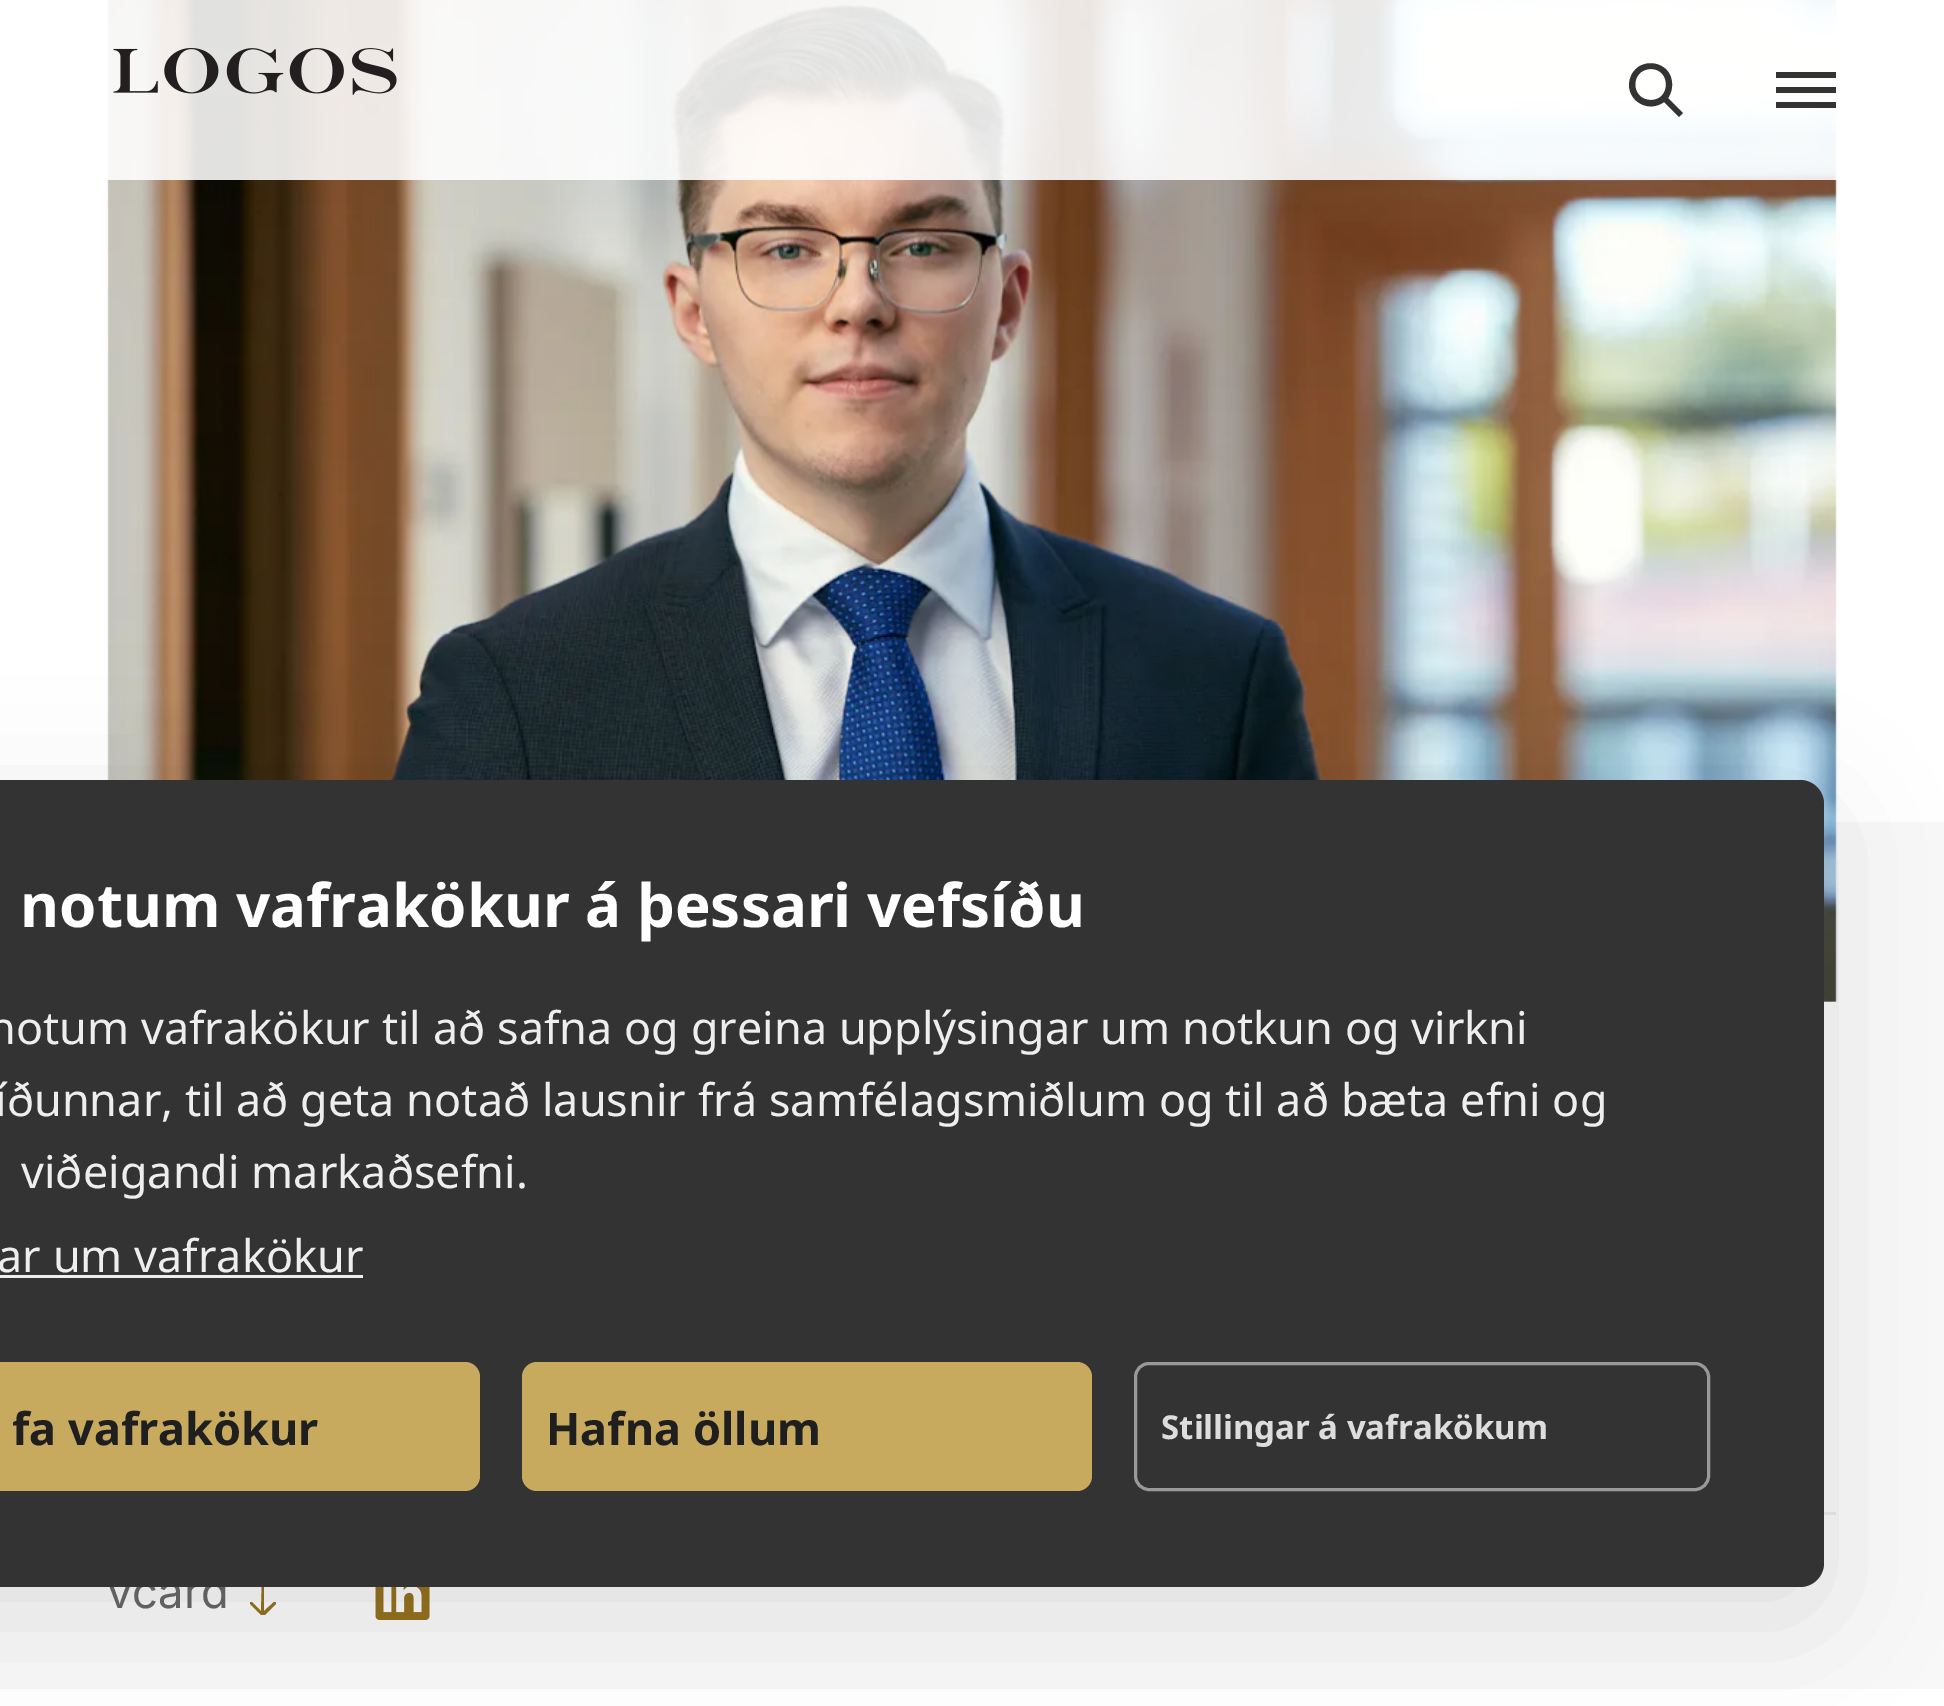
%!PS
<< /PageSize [1944 1706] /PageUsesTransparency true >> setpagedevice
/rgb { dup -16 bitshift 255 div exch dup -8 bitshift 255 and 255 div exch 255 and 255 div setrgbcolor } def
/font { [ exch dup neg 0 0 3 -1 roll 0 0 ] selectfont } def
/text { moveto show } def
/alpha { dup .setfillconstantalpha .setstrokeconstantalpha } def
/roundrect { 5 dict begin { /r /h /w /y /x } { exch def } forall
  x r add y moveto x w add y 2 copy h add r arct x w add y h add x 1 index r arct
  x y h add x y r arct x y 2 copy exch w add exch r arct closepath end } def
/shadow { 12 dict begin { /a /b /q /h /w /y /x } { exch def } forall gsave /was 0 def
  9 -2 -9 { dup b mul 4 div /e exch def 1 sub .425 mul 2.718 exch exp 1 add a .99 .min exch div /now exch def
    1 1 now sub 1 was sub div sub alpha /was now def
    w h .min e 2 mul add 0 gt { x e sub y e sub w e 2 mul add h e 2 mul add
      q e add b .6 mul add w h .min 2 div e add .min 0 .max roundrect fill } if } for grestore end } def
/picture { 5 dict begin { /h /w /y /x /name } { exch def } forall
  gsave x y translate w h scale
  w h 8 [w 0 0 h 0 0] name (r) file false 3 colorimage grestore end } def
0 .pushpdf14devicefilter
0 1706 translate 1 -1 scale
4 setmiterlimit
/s1 { /Inter-Regular 45.5 font 16#606060 rgb } def
/s2 { /NotoSans-Bold 60 font 16#FFFFFF rgb } def
/s3 { /NotoSans-Regular 45 font 16#EEEEEE rgb } def
/s4 { /NotoSans-Bold 45 font 16#1F1F1F rgb } def
/s5 { /NotoSans-Bold 33 font 16#DDDDDD rgb } def
16#FFFFFF rgb
0 0 1944 1706 rectfill
16#F8F8F8 rgb
0 822 1944 867 rectfill
(pic2.raw) 107 0 1731 1002 picture
16#E5E9EC rgb
1824 1512 12 3 rectfill
16#946F1E rgb
261 1615 moveto 265 1615 lineto 276 1604 lineto 276 1602 lineto 274 1602 lineto 264 1611 lineto 264 1575 lineto 262 1575 lineto 261 1611 lineto 252 1602 lineto 250 1602 lineto 250 1604 lineto closepath fill
(pic3.raw) 375 1587 55 33 picture
16#000000 rgb
-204 810 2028 807 24 60 0.1 shadow
s1
(vcard) 107 1608 text
16#333333 rgb
-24 780 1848 807 24 roundrect fill
s2
(notum vafrakökur á þessari vefsíðu) 20 927 text
s3
(notum vafrakökur til að safna og greina upplýsingar um notkun og virkni) -12 1044 text
(íðunnar, til að geta notað lausnir frá samfélagsmiðlum og til að bæta efni og) -5 1116 text
(viðeigandi markaðsefni.) 21 1188 text
(ar um vafrakökur) -3 1272 text
0 1275 363 3 rectfill
16#C8AA5E rgb
-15 1362 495 129 15 roundrect fill
s4
(fa vafrakökur) 12 1445 text
16#C8AA5E rgb
522 1362 570 129 15 roundrect fill
s4
(Hafna öllum) 546 1445 text
16#999999 rgb
3 setlinewidth
1135.5 1363.5 573 126 13.5 roundrect stroke
s5
(Stillingar á vafrakökum) 1161 1439 text
0.88 alpha
16#FFFFFF rgb
107 0 1731 180 rectfill
1 alpha
(pic1.raw) 113 48 284 47 picture
16#333333 rgb
1668 98 moveto 1683 113 lineto 1679 117 lineto 1664 102 lineto 1646 115 1622 97 1631 76 curveto 1633 71 1637 67 1642 65 curveto 1649 62 1657 63 1663 67 curveto 1673 73 1675 88 1668 98 curveto closepath 1651 100 moveto 1671 100 1671 69 1651 69 curveto 1630 69 1630 100 1651 100 curveto closepath fill
1776 72 60 6 rectfill
1776 87 60 6 rectfill
1776 102 60 6 rectfill
.poppdf14devicefilter showpage
